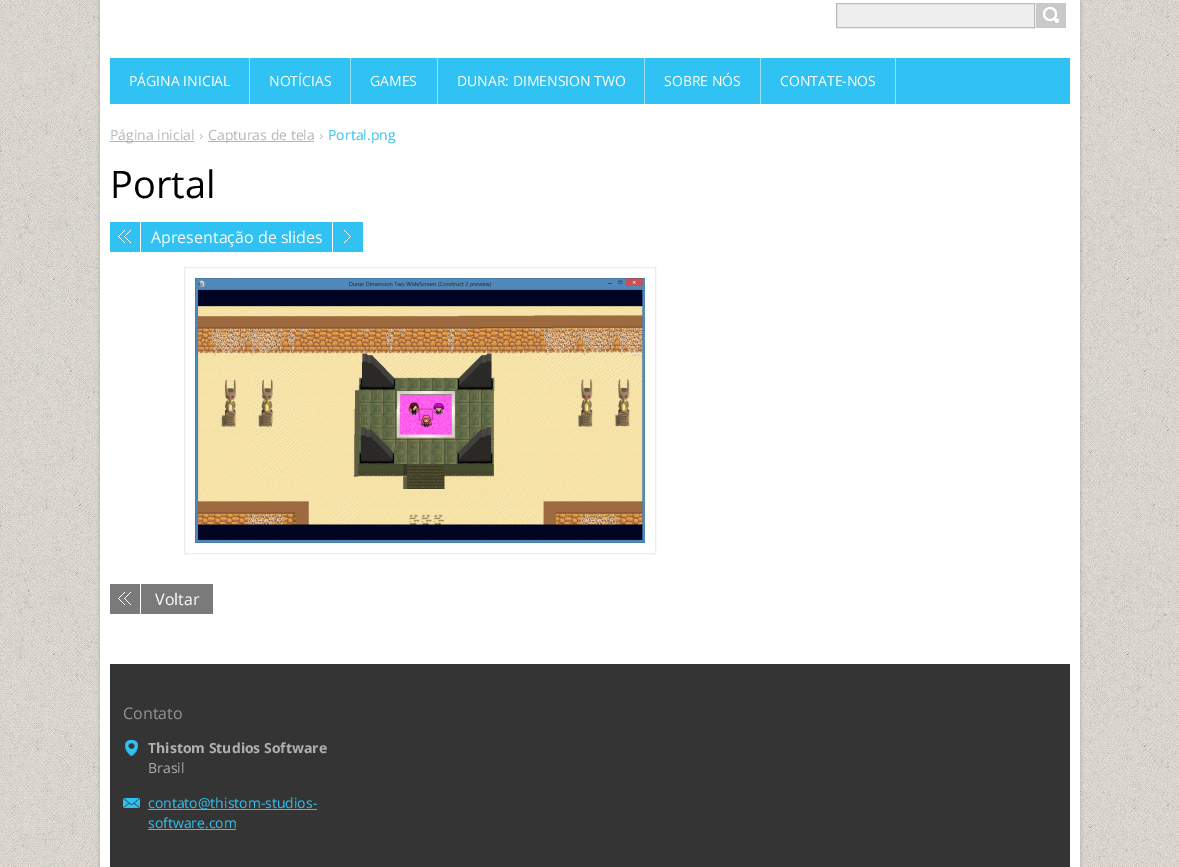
%!PS
<< /PageSize [1179 867] /PageUsesTransparency true >> setpagedevice
/rgb { dup -16 bitshift 255 div exch dup -8 bitshift 255 and 255 div exch 255 and 255 div setrgbcolor } def
/font { [ exch dup neg 0 0 3 -1 roll 0 0 ] selectfont } def
/text { moveto show } def
/alpha { dup .setfillconstantalpha .setstrokeconstantalpha } def
/roundrect { 5 dict begin { /r /h /w /y /x } { exch def } forall
  x r add y moveto x w add y 2 copy h add r arct x w add y h add x 1 index r arct
  x y h add x y r arct x y 2 copy exch w add exch r arct closepath end } def
/shadow { 12 dict begin { /a /b /q /h /w /y /x } { exch def } forall gsave /was 0 def
  9 -2 -9 { dup b mul 4 div /e exch def 1 sub .425 mul 2.718 exch exp 1 add a .99 .min exch div /now exch def
    1 1 now sub 1 was sub div sub alpha /was now def
    w h .min e 2 mul add 0 gt { x e sub y e sub w e 2 mul add h e 2 mul add
      q e add b .6 mul add w h .min 2 div e add .min 0 .max roundrect fill } if } for grestore end } def
/picture { 5 dict begin { /h /w /y /x /name } { exch def } forall
  gsave x y translate w h scale
  w h 8 [w 0 0 h 0 0] name (r) file false 3 colorimage grestore end } def
0 .pushpdf14devicefilter
0 867 translate 1 -1 scale
4 setmiterlimit
/s1 { /OpenSans-Regular 14 font 16#FFFFFF rgb } def
/s2 { /OpenSans-Regular 14 font 16#B5B5B5 rgb } def
/s3 { /OpenSans-Regular 14 font 16#2FC2F2 rgb } def
/s4 { /OpenSans-Regular 38 font 16#000000 rgb } def
/s5 { /OpenSans-Regular 16 font 16#FFFFFF rgb } def
/s6 { /OpenSans-Regular 16 font 16#959595 rgb } def
/s7 { /OpenSans-Bold 14 font 16#B0AFAF rgb } def
/s8 { /OpenSans-Regular 14 font 16#B0AFAF rgb } def
16#FFFFFF rgb
0 0 1179 867 rectfill
(pic1.raw) 0 0 1179 867 picture
16#989898 rgb
100 -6 980 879 0 2 0.75 shadow
16#FFFFFF rgb
100 0 980 867 rectfill
16#EEEEEE rgb
836.5 3.5 moveto 1034.5 3.5 lineto 1034.5 27.5 lineto 836.5 27.5 lineto closepath gsave fill grestore
16#BBBBBB rgb
stroke
16#C9C9C9 rgb
1036 3 30 25 rectfill
(pic2.raw) 1043 7 16 16 picture
16#2FC2F2 rgb
110 58 960 46 rectfill
16#97E1F9 rgb
249 58 1 46 rectfill
s1
(PÁGINA INICIAL) 129 86 text
16#97E1F9 rgb
350 58 1 46 rectfill
s1
(NOTÍCIAS) 269 86 text
16#97E1F9 rgb
437 58 1 46 rectfill
s1
(GAMES) 370 86 text
16#97E1F9 rgb
644 58 1 46 rectfill
s1
(DUNAR: DIMENSION TWO) 457 86 text
16#97E1F9 rgb
760 58 1 46 rectfill
s1
(SOBRE NÓS) 664 86 text
16#97E1F9 rgb
895 58 1 46 rectfill
s1
(CONTATE-NOS) 780 86 text
16#B5B5B5 rgb
110 141 84 1 rectfill
(Página inicial) 110 140 text
(pic3.raw) 200 134 3 5 picture
208 141 106 1 rectfill
(Capturas de tela) 208 140 text
(pic3.raw) 320 134 3 5 picture
s3
(Portal.png) 328 140 text
s4
(Portal) 110 198 text
16#2FC2F2 rgb
110 222 30 30 rectfill
(pic4.raw) 118 230 13 13 picture
141 222 191 30 rectfill
s5
(Apresentação de slides) 151 243 text
16#2FC2F2 rgb
333 222 30 30 rectfill
(pic5.raw) 344 230 7 13 picture
16#ECECEC rgb
184.5 267.5 471 286 rectstroke
(pic6.raw) 195 278 450 265 picture
16#7A7A7A rgb
110 584 103 30 rectfill
(pic7.raw) 118 592 13 13 picture
16#FFFFFF rgb
140 584 1 30 rectfill
(Voltar) 155 605 text
16#343434 rgb
110 664 960 203 rectfill
s6
(Contato) 123 719 text
(pic8.raw) 125 740 13 16 picture
s7
(Thistom Studios Software) 148 753 text
s8
(Brasil) 148 773 text
(pic9.raw) 123 798 17 10 picture
16#2FC2F2 rgb
148 809 169 1 rectfill
(contato@thistom-studios-) 148 808 text
(software.com) 148 828 text
148 829 88 1 rectfill
.poppdf14devicefilter showpage
